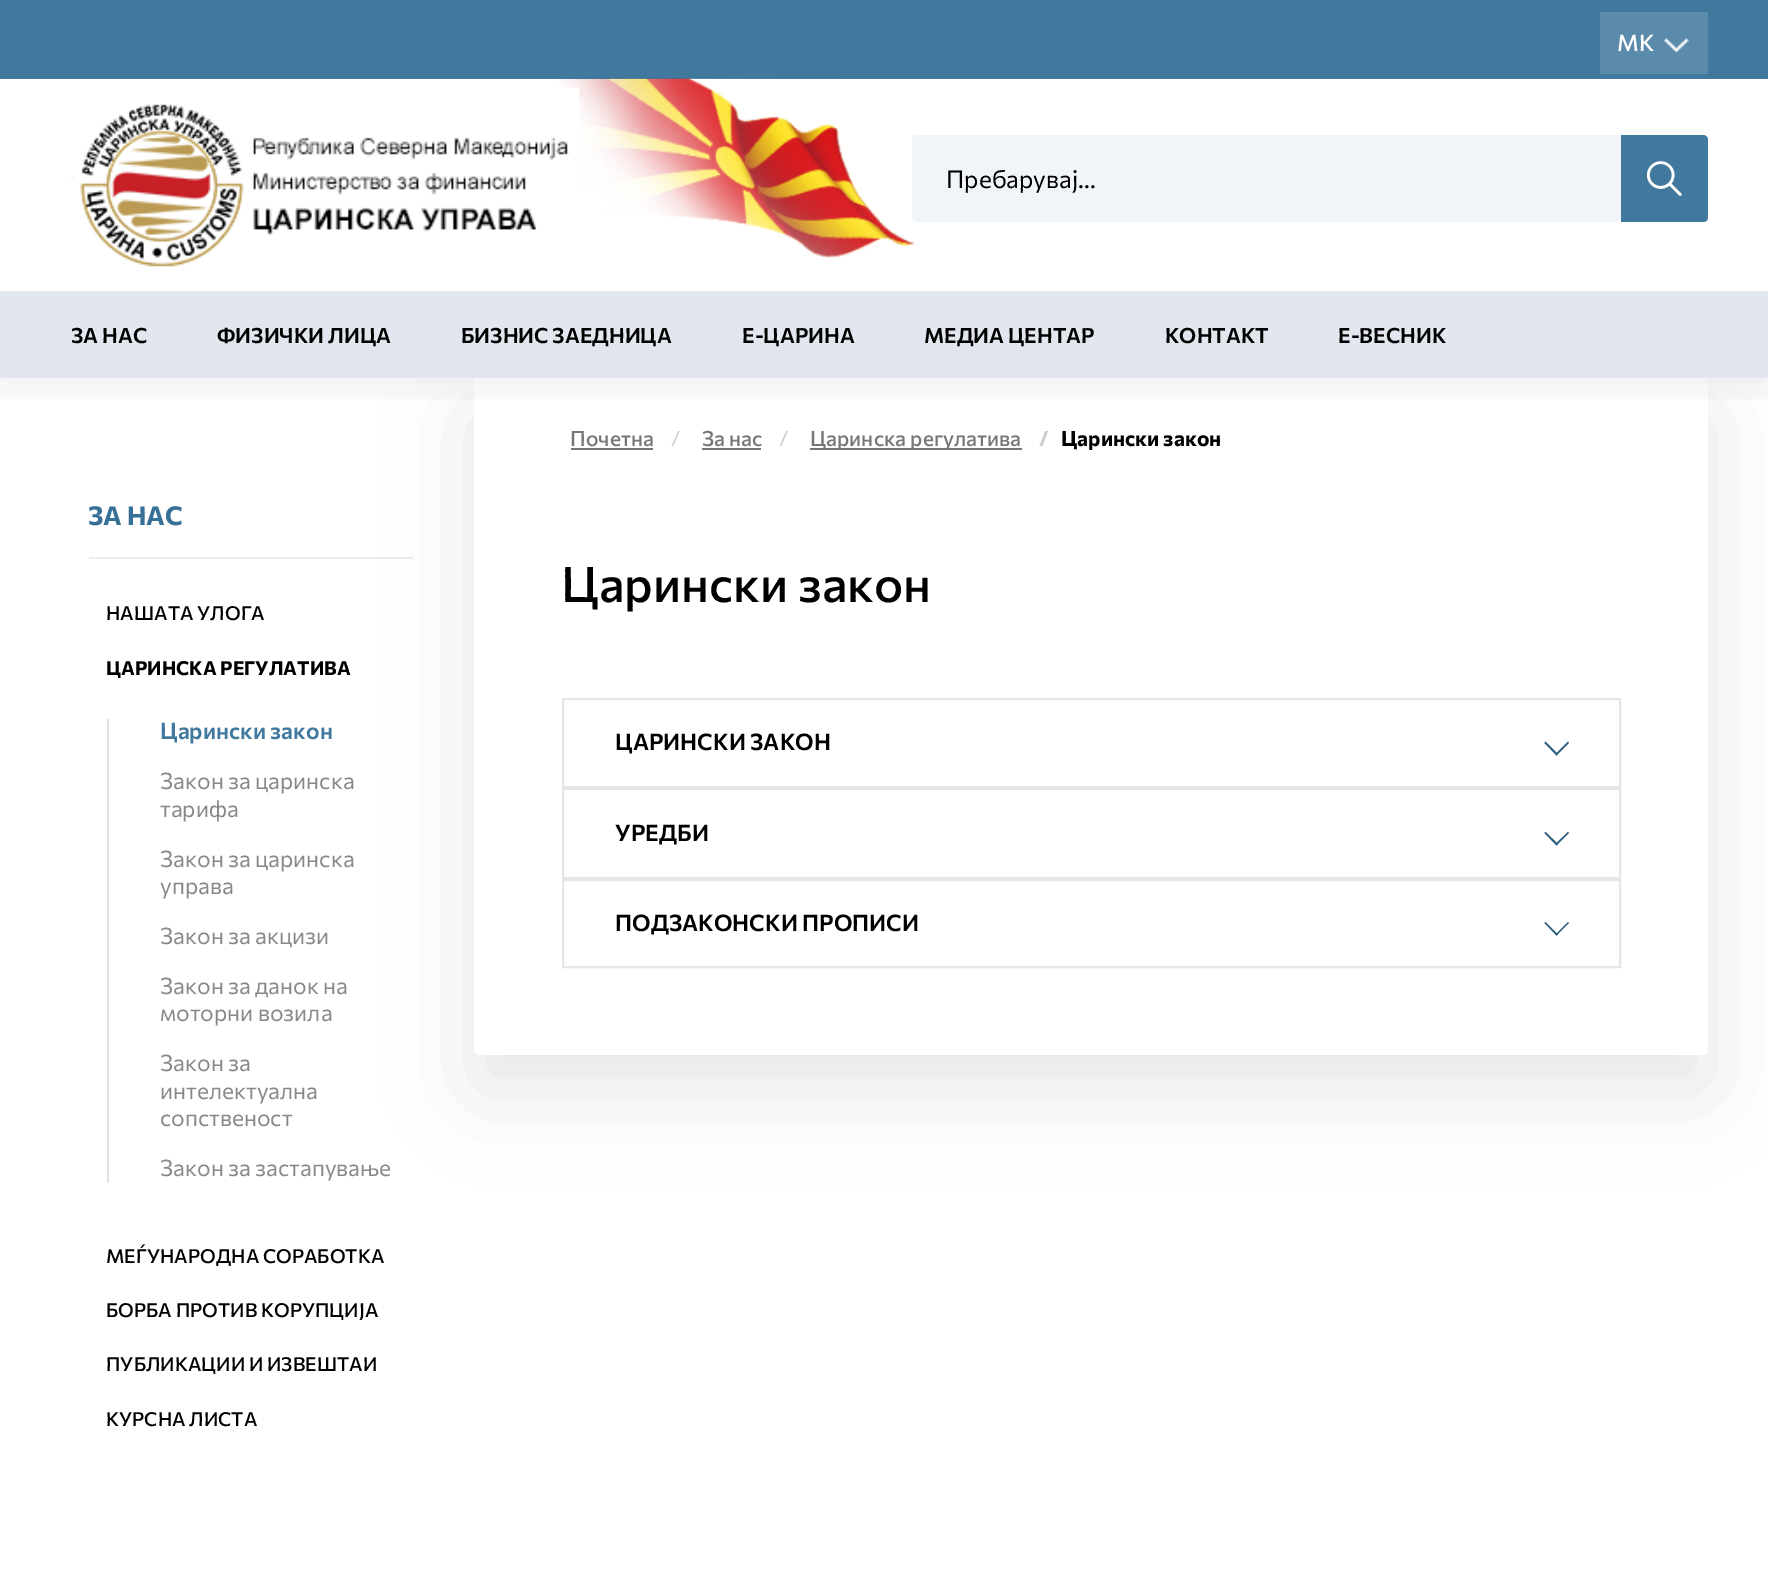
%!PS
<< /PageSize [1768 1575] /PageUsesTransparency true >> setpagedevice
/rgb { dup -16 bitshift 255 div exch dup -8 bitshift 255 and 255 div exch 255 and 255 div setrgbcolor } def
/font { [ exch dup neg 0 0 3 -1 roll 0 0 ] selectfont } def
/text { moveto show } def
/alpha { dup .setfillconstantalpha .setstrokeconstantalpha } def
/roundrect { 5 dict begin { /r /h /w /y /x } { exch def } forall
  x r add y moveto x w add y 2 copy h add r arct x w add y h add x 1 index r arct
  x y h add x y r arct x y 2 copy exch w add exch r arct closepath end } def
/shadow { 12 dict begin { /a /b /q /h /w /y /x } { exch def } forall gsave /was 0 def
  9 -2 -9 { dup b mul 4 div /e exch def 1 sub .425 mul 2.718 exch exp 1 add a .99 .min exch div /now exch def
    1 1 now sub 1 was sub div sub alpha /was now def
    w h .min e 2 mul add 0 gt { x e sub y e sub w e 2 mul add h e 2 mul add
      q e add b .6 mul add w h .min 2 div e add .min 0 .max roundrect fill } if } for grestore end } def
/picture { 5 dict begin { /h /w /y /x /name } { exch def } forall
  gsave x y translate w h scale
  w h 8 [w 0 0 h 0 0] name (r) file false 3 colorimage grestore end } def
0 .pushpdf14devicefilter
0 1575 translate 1 -1 scale
4 setmiterlimit
/s1 { /Commissioner-Medium 22.75 font 16#FFFFFF rgb } def
/s2 { /Commissioner-Regular 24.5 font 16#000000 rgb } def
/s3 { /Commissioner-SemiBold 21 font 16#000000 rgb } def
/s4 { /Commissioner-Bold 26 font 16#367097 rgb } def
/s5 { /Commissioner-Medium 19.25 font 16#000000 rgb } def
/s6 { /Commissioner-Bold 19.25 font 16#000000 rgb } def
/s7 { /Commissioner-SemiBold 22.75 font 16#41799E rgb } def
/s8 { /Commissioner-Regular 22.75 font 16#888888 rgb } def
/s9 { /Commissioner-Medium 21 font 16#777777 rgb } def
/s10 { /Commissioner-Regular 21 font 16#CCCCCC rgb } def
/s11 { /Commissioner-Bold 21 font 16#CCCCCC rgb } def
/s12 { /Commissioner-Bold 21 font 16#000000 rgb } def
/s13 { /Commissioner-Medium 49 font 16#000000 rgb } def
/s14 { /Commissioner-SemiBold 22.75 font 16#000000 rgb } def
16#FFFFFF rgb
0 0 1768 1575 rectfill
16#EEEEEE rgb
89 557 324 2 rectfill
16#000000 rgb
474 413 1234 677 5 44 0.1 shadow
16#FFFFFF rgb
474 378 moveto 1708 378 lineto 1708 1050 lineto 1708 1053 1706 1055 1703 1055 curveto 479 1055 lineto 476 1055 474 1053 474 1050 curveto closepath fill
16#777777 rgb
571 448 82 2 rectfill
702 448 59 2 rectfill
810 448 212 2 rectfill
gsave
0 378 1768 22 rectclip
16#1C1D23 rgb
0 0 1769 378 0 26 0.1 shadow
grestore
16#41799E rgb
0 0 1768 79 rectfill
16#5A8BAB rgb
1600 12 108 62 rectfill
s1
(MK) 1617 51 text
(pic1.raw) 1664 38 25 15 picture
(pic2.raw) 558 78 357 181 picture
(pic3.raw) 71 87 509 180 picture
16#F1F4F9 rgb
912 135 709 87 5 roundrect fill
s2
(Пребарувај...) 946 188 text
16#41799E rgb
1621 135 moveto 1703 135 lineto 1706 135 1708 137 1708 140 curveto 1708 217 lineto 1708 220 1706 222 1703 222 curveto 1621 222 lineto closepath fill
(pic4.raw) 1647 161 35 35 picture
16#E2E6EF rgb
0 291 1768 87 rectfill
s3
(ЗА НАС) 71 343 text
(ФИЗИЧКИ ЛИЦА) 217 343 text
(БИЗНИС ЗАЕДНИЦА) 461 343 text
(Е-ЦАРИНА) 742 343 text
(МЕДИА ЦЕНТАР) 924 343 text
(КОНТАКТ) 1165 343 text
(Е-ВЕСНИК) 1338 343 text
s4
(ЗА НАС) 88 525 text
s5
(НАШАТА УЛОГА) 106 620 text
s6
(ЦАРИНСКА РЕГУЛАТИВА) 106 675 text
16#E2E2E2 rgb
107 719 2 464 rectfill
s7
(Царински закон) 160 739 text
s8
(Закон за царинска) 160 789 text
(тарифа) 160 817 text
(Закон за царинска) 160 867 text
(управа) 160 894 text
(Закон за акцизи) 160 944 text
(Закон за данок на) 160 994 text
(моторни возила) 160 1021 text
(Закон за) 160 1071 text
(интелектуална) 160 1099 text
(сопственост) 160 1126 text
(Закон за застапување) 160 1176 text
s5
(МЕЃУНАРОДНА СОРАБОТКА) 106 1263 text
(БОРБА ПРОТИВ КОРУПЦИЈА) 106 1317 text
(ПУБЛИКАЦИИ И ИЗВЕШТАИ) 106 1371 text
(КУРСНА ЛИСТА) 106 1426 text
s9
(Почетна) 570 446 text
s10
(/) 671 446 text
s9
(За нас) 702 446 text
s10
(/) 779 446 text
s9
(Царинска регулатива) 810 446 text
s11
(/) 1039 446 text
s12
(Царински закон) 1061 446 text
s13
(Царински закон) 561 602 text
16#E6E6E6 rgb
2 setlinewidth
563 699 1057 88 rectstroke
s14
(ЦАРИНСКИ ЗАКОН) 615 750 text
16#2C5D7D rgb
1568 741.5 moveto 1569 743 lineto 1556.5 755.5 lineto 1555.5 754 lineto closepath fill
1545.5 741.5 moveto 1558 754 lineto 1556.5 755.5 lineto 1544.5 743 lineto closepath fill
16#E6E6E6 rgb
563 789 1057 89 rectstroke
s14
(УРЕДБИ) 615 841 text
16#2C5D7D rgb
1568 832 moveto 1569 833 lineto 1556.5 845.5 lineto 1555.5 844 lineto closepath fill
1545.5 832 moveto 1558 844 lineto 1556.5 845.5 lineto 1544.5 833 lineto closepath fill
16#E6E6E6 rgb
563 880 1057 87 rectstroke
s14
(ПОДЗАКОНСКИ ПРОПИСИ) 615 931 text
16#2C5D7D rgb
1568 922 moveto 1569 923 lineto 1556.5 935.5 lineto 1555.5 934.5 lineto closepath fill
1545.5 922 moveto 1558 934.5 lineto 1556.5 935.5 lineto 1544.5 923 lineto closepath fill
.poppdf14devicefilter showpage
